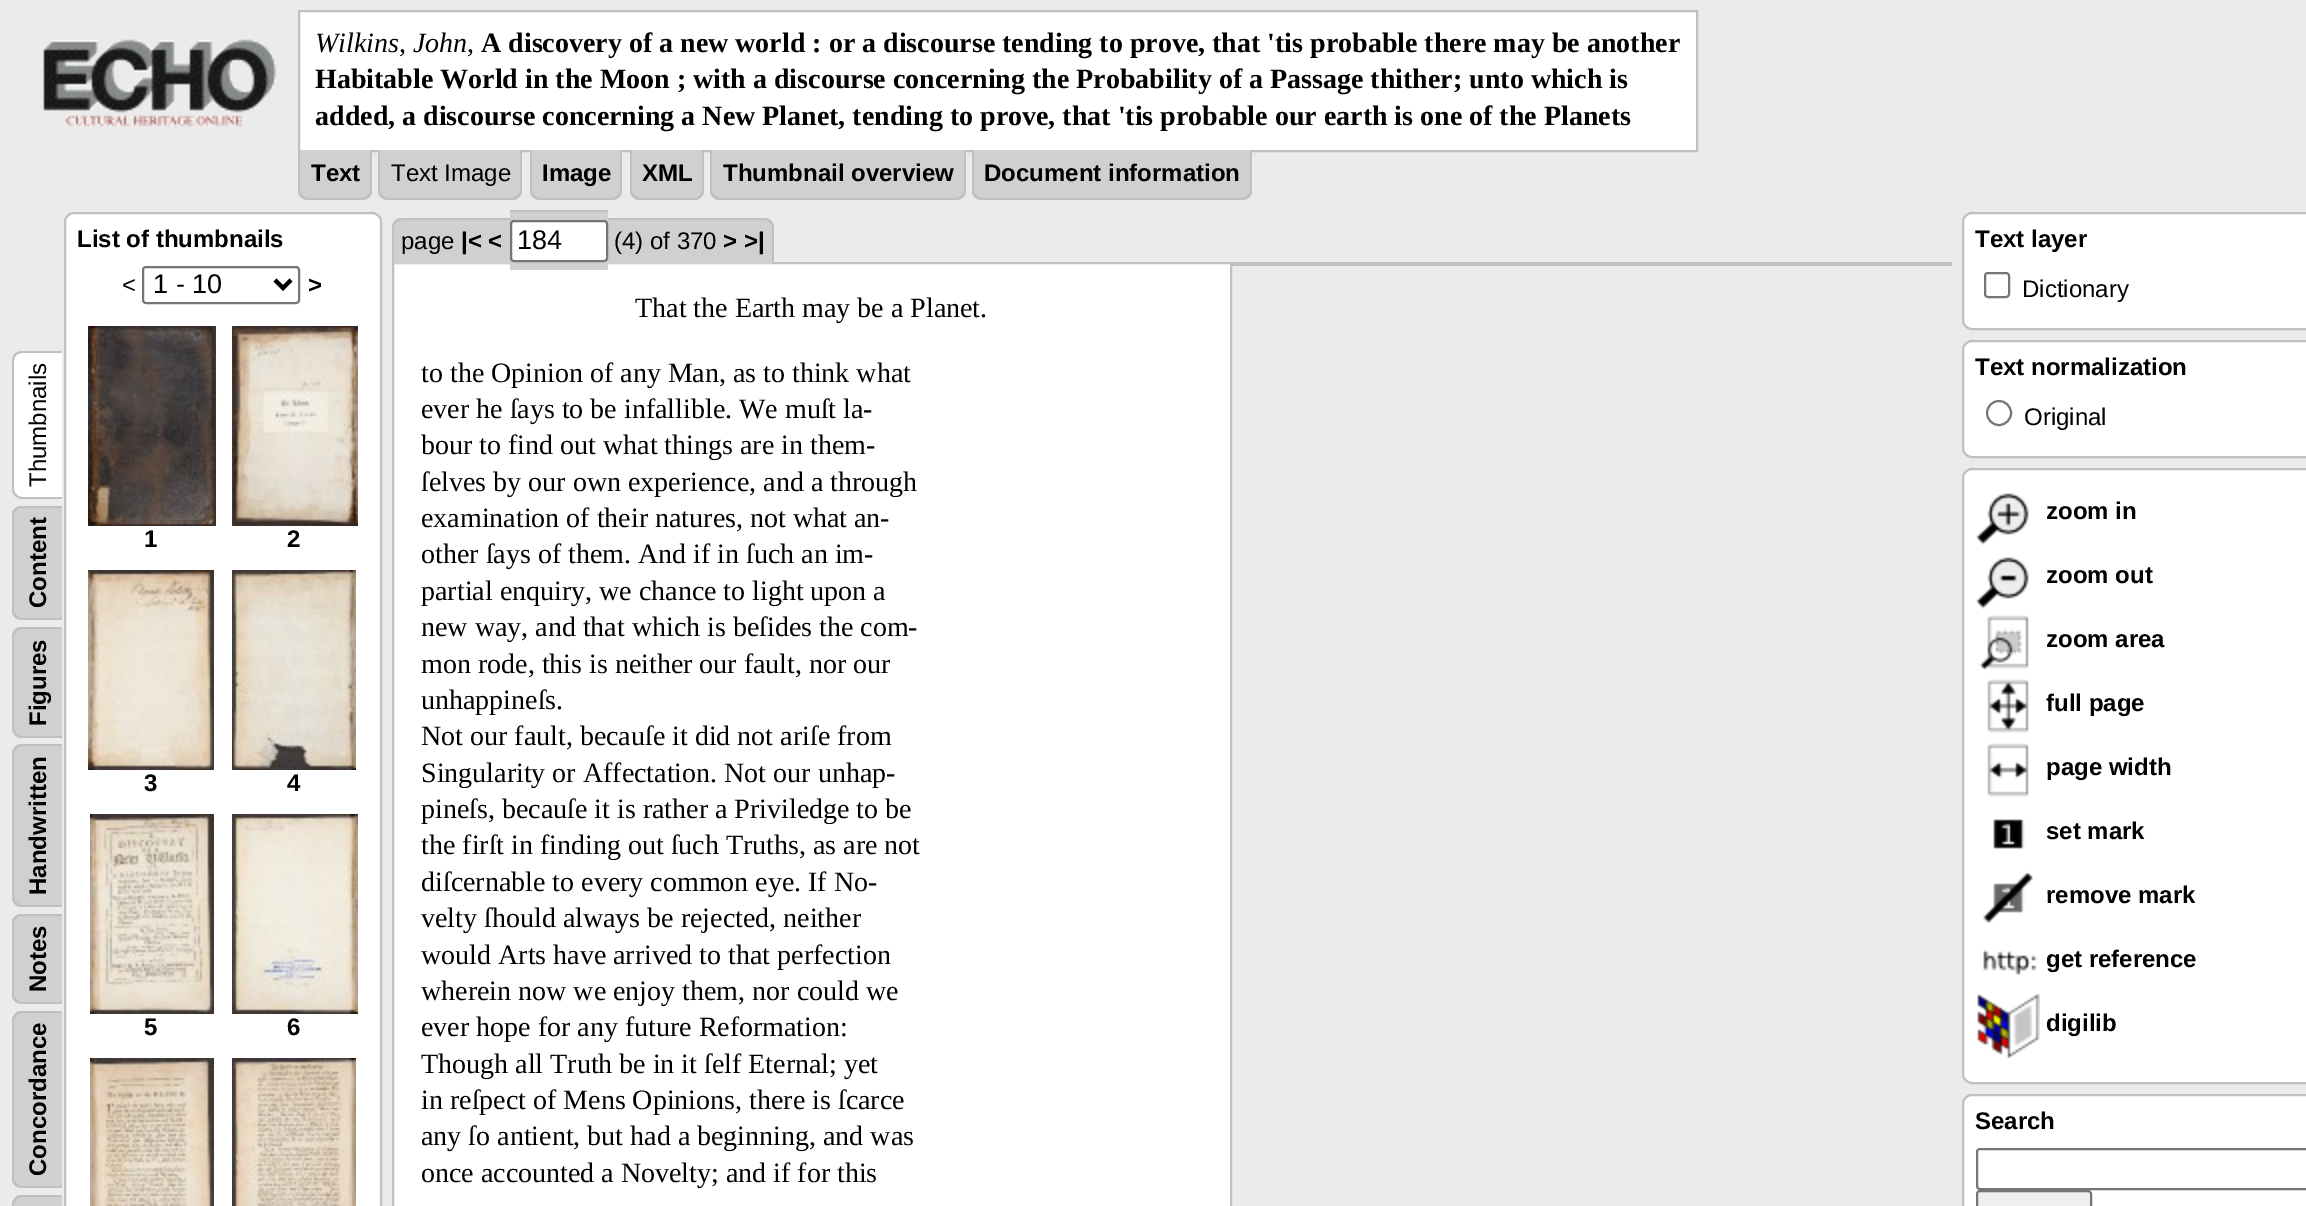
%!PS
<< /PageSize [2306 1206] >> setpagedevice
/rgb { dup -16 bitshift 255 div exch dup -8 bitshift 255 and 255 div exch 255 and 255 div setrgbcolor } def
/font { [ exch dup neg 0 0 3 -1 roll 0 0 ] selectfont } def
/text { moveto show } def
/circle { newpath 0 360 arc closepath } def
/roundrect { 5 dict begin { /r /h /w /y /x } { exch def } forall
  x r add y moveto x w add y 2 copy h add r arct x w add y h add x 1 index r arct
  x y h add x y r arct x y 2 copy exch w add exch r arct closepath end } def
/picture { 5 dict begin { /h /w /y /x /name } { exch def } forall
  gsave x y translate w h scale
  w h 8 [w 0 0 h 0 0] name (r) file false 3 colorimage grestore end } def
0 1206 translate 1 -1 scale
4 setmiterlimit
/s1 { /LiberationSerif-Italic 28 font 16#000000 rgb } def
/s2 { /LiberationSerif-Regular 28 font 16#000000 rgb } def
/s3 { /LiberationSerif-Bold 28 font 16#000000 rgb } def
/s4 { /LiberationSans-Bold 24 font 16#000000 rgb } def
/s5 { /LiberationSans-Regular 24 font 16#000000 rgb } def
/s6 { /LiberationSans-Regular 27 font 16#000000 rgb } def
16#EBEBEB rgb
0 0 2306 1206 rectfill
(pic1.raw) 43 39 234 88 picture
16#FFFFFF rgb
299 11 moveto 1697 11 lineto 1697 151 lineto 299 151 lineto closepath gsave fill grestore
16#C0C0C0 rgb
2 setlinewidth
stroke
s1
(Wilkins, John) 315 52 text
s2
(,) 467 52 text
s3
(A discovery of a new world : or a discourse tending to prove, that 'tis probable there may be another) 481 52 text
(Habitable World in the Moon ; with a discourse concerning the Probability of a Passage thither; unto which is) 315 88 text
(added, a discourse concerning a New Planet, tending to prove, that 'tis probable our earth is one of the Planets) 315 125 text
16#D0D0D0 rgb
298 150 moveto 372 150 lineto 372 190 lineto 372 195.5 367.5 200 362 200 curveto 308 200 lineto 302.5 200 298 195.5 298 190 curveto closepath fill
16#C0C0C0 rgb
298 150 moveto 372 150 lineto 372 190 lineto 372 196 368 200 362 200 curveto 308 200 lineto 302 200 298 196 298 190 curveto closepath 300 150 moveto 370 150 lineto 370 190 lineto 370 194 366 198 362 198 curveto 308 198 lineto 304 198 300 194 300 190 curveto closepath eofill
s4
(Text) 311 181 text
16#D0D0D0 rgb
378 150 moveto 522 150 lineto 522 190 lineto 522 195.5 517.5 200 512 200 curveto 388 200 lineto 382.5 200 378 195.5 378 190 curveto closepath fill
16#C0C0C0 rgb
378 150 moveto 522 150 lineto 522 190 lineto 522 196 518 200 512 200 curveto 388 200 lineto 382 200 378 196 378 190 curveto closepath 380 150 moveto 520 150 lineto 520 190 lineto 520 194 516 198 512 198 curveto 388 198 lineto 384 198 380 194 380 190 curveto closepath eofill
s5
(Text Image) 391 181 text
16#D0D0D0 rgb
530 150 moveto 622 150 lineto 622 190 lineto 622 195.5 617.5 200 612 200 curveto 540 200 lineto 534.5 200 530 195.5 530 190 curveto closepath fill
16#C0C0C0 rgb
530 150 moveto 622 150 lineto 622 190 lineto 622 196 618 200 612 200 curveto 540 200 lineto 534 200 530 196 530 190 curveto closepath 532 150 moveto 620 150 lineto 620 190 lineto 620 194 616 198 612 198 curveto 540 198 lineto 536 198 532 194 532 190 curveto closepath eofill
s4
(Image) 542 181 text
16#D0D0D0 rgb
630 150 moveto 704 150 lineto 704 190 lineto 704 195.5 699.5 200 694 200 curveto 640 200 lineto 634.5 200 630 195.5 630 190 curveto closepath fill
16#C0C0C0 rgb
630 150 moveto 704 150 lineto 704 190 lineto 704 196 700 200 694 200 curveto 640 200 lineto 634 200 630 196 630 190 curveto closepath 632 150 moveto 702 150 lineto 702 190 lineto 702 194 698 198 694 198 curveto 640 198 lineto 636 198 632 194 632 190 curveto closepath eofill
s4
(XML) 642 181 text
16#D0D0D0 rgb
710 150 moveto 966 150 lineto 966 190 lineto 966 195.5 961.5 200 956 200 curveto 720 200 lineto 714.5 200 710 195.5 710 190 curveto closepath fill
16#C0C0C0 rgb
710 150 moveto 966 150 lineto 966 190 lineto 966 196 962 200 956 200 curveto 720 200 lineto 714 200 710 196 710 190 curveto closepath 712 150 moveto 964 150 lineto 964 190 lineto 964 194 960 198 956 198 curveto 720 198 lineto 716 198 712 194 712 190 curveto closepath eofill
s4
(Thumbnail overview) 723 181 text
16#D0D0D0 rgb
972 150 moveto 1252 150 lineto 1252 190 lineto 1252 195.5 1247.5 200 1242 200 curveto 982 200 lineto 976.5 200 972 195.5 972 190 curveto closepath fill
16#C0C0C0 rgb
972 150 moveto 1252 150 lineto 1252 190 lineto 1252 196 1248 200 1242 200 curveto 982 200 lineto 976 200 972 196 972 190 curveto closepath 974 150 moveto 1250 150 lineto 1250 190 lineto 1250 194 1246 198 1242 198 curveto 982 198 lineto 978 198 974 194 974 190 curveto closepath eofill
s4
(Document information) 984 181 text
16#FFFFFF rgb
12 489 moveto 12 361 lineto 12 355 16 351 22 351 curveto 62 351 lineto 62 499 lineto 22 499 lineto 16 499 12 494 12 489 curveto closepath fill
16#C0C0C0 rgb
12 489 moveto 12 361 lineto 12 355 16 351 22 351 curveto 62 351 lineto 62 499 lineto 22 499 lineto 16 499 12 494 12 489 curveto closepath 14 489 moveto 14 361 lineto 14 356 18 353 22 353 curveto 62 353 lineto 62 497 lineto 22 497 lineto 18 497 14 493 14 489 curveto closepath eofill
/LiberationSans-Regular 24 font
16#000000 rgb
gsave 46 487 translate -90 rotate 0 0 moveto (Thumbnails) show grestore
16#D0D0D0 rgb
12 610 moveto 12 516 lineto 12 510 16 506 22 506 curveto 62 506 lineto 62 620 lineto 22 620 lineto 16 620 12 616 12 610 curveto closepath fill
16#C0C0C0 rgb
12 610 moveto 12 516 lineto 12 510 16 506 22 506 curveto 62 506 lineto 62 620 lineto 22 620 lineto 16 620 12 616 12 610 curveto closepath 14 610 moveto 14 516 lineto 14 511 18 508 22 508 curveto 62 508 lineto 62 618 lineto 22 618 lineto 18 618 14 615 14 610 curveto closepath eofill
/LiberationSans-Bold 24 font
16#000000 rgb
gsave 46 608 translate -90 rotate 0 0 moveto (Content) show grestore
16#D0D0D0 rgb
12 728 moveto 12 637 lineto 12 631 16 627 22 627 curveto 62 627 lineto 62 738 lineto 22 738 lineto 16 738 12 733 12 728 curveto closepath fill
16#C0C0C0 rgb
12 728 moveto 12 637 lineto 12 631 16 627 22 627 curveto 62 627 lineto 62 738 lineto 22 738 lineto 16 738 12 733 12 728 curveto closepath 14 728 moveto 14 637 lineto 14 633 18 629 22 629 curveto 62 629 lineto 62 736 lineto 22 736 lineto 18 736 14 732 14 728 curveto closepath eofill
16#000000 rgb
gsave 46 726 translate -90 rotate 0 0 moveto (Figures) show grestore
16#D0D0D0 rgb
12 897 moveto 12 754 lineto 12 749 16 744 22 744 curveto 62 744 lineto 62 907 lineto 22 907 lineto 16 907 12 903 12 897 curveto closepath fill
16#C0C0C0 rgb
12 897 moveto 12 754 lineto 12 749 16 744 22 744 curveto 62 744 lineto 62 907 lineto 22 907 lineto 16 907 12 903 12 897 curveto closepath 14 897 moveto 14 754 lineto 14 750 18 746 22 746 curveto 62 746 lineto 62 905 lineto 22 905 lineto 18 905 14 901 14 897 curveto closepath eofill
16#000000 rgb
gsave 46 895 translate -90 rotate 0 0 moveto (Handwritten) show grestore
16#D0D0D0 rgb
12 994 moveto 12 924 lineto 12 918 16 914 22 914 curveto 62 914 lineto 62 1004 lineto 22 1004 lineto 16 1004 12 1000 12 994 curveto closepath fill
16#C0C0C0 rgb
12 994 moveto 12 924 lineto 12 918 16 914 22 914 curveto 62 914 lineto 62 1004 lineto 22 1004 lineto 16 1004 12 1000 12 994 curveto closepath 14 994 moveto 14 924 lineto 14 919 18 916 22 916 curveto 62 916 lineto 62 1002 lineto 22 1002 lineto 18 1002 14 999 14 994 curveto closepath eofill
16#000000 rgb
gsave 46 992 translate -90 rotate 0 0 moveto (Notes) show grestore
16#D0D0D0 rgb
12 1178 moveto 12 1021 lineto 12 1016 16 1011 22 1011 curveto 62 1011 lineto 62 1188 lineto 22 1188 lineto 16 1188 12 1184 12 1178 curveto closepath fill
16#C0C0C0 rgb
12 1178 moveto 12 1021 lineto 12 1016 16 1011 22 1011 curveto 62 1011 lineto 62 1188 lineto 22 1188 lineto 16 1188 12 1184 12 1178 curveto closepath 14 1178 moveto 14 1021 lineto 14 1017 18 1013 22 1013 curveto 62 1013 lineto 62 1186 lineto 22 1186 lineto 18 1186 14 1183 14 1178 curveto closepath eofill
16#000000 rgb
gsave 46 1176 translate -90 rotate 0 0 moveto (Concordance) show grestore
16#D0D0D0 rgb
12 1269 moveto 12 1205 lineto 12 1200 16 1195 22 1195 curveto 62 1195 lineto 62 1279 lineto 22 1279 lineto 16 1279 12 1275 12 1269 curveto closepath fill
16#C0C0C0 rgb
12 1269 moveto 12 1205 lineto 12 1200 16 1195 22 1195 curveto 62 1195 lineto 62 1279 lineto 22 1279 lineto 16 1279 12 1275 12 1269 curveto closepath 14 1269 moveto 14 1205 lineto 14 1201 18 1197 22 1197 curveto 62 1197 lineto 62 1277 lineto 22 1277 lineto 18 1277 14 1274 14 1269 curveto closepath eofill
16#FFFFFF rgb
65 213 316 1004 9 roundrect gsave fill grestore
16#C0C0C0 rgb
stroke
s4
(List of thumbnails) 77 247 text
s5
(<) 122 293 text
16#767676 rgb
143 267 156 36 3 roundrect stroke
16#000000 rgb
4 setlinewidth
275 280 moveto 283 288 lineto 291 280 lineto stroke
s6
(1 - 10) 153 293 text
s4
(>) 308 293 text
(pic2.raw) 88 326 128 200 picture
(1) 144 547 text
(pic3.raw) 232 326 126 200 picture
(2) 287 547 text
(pic4.raw) 88 570 126 200 picture
(3) 144 791 text
(pic5.raw) 232 570 124 200 picture
(4) 287 791 text
(pic6.raw) 90 814 124 200 picture
(5) 144 1035 text
(pic7.raw) 232 814 126 200 picture
(6) 287 1035 text
(pic8.raw) 90 1058 124 148 picture
(pic9.raw) 232 1058 124 148 picture
16#FFFFFF rgb
393 263 moveto 1231 263 lineto 1231 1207 lineto 393 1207 lineto closepath gsave fill grestore
16#C0C0C0 rgb
2 setlinewidth
stroke
16#D0D0D0 rgb
402 218 moveto 462 218 lineto 462 264 lineto 392 264 lineto 392 228 lineto 392 222.5 396.5 218 402 218 curveto closepath fill
16#C0C0C0 rgb
402 218 moveto 462 218 lineto 462 264 lineto 392 264 lineto 392 228 lineto 392 222 396 218 402 218 curveto closepath 402 220 moveto 462 220 lineto 462 264 lineto 394 264 lineto 394 228 lineto 394 224 398 220 402 220 curveto closepath eofill
16#D0D0D0 rgb
462 220 20 44 rectfill
16#C0C0C0 rgb
462 218 20 2 rectfill
16#D0D0D0 rgb
482 218 6 46 rectfill
16#C0C0C0 rgb
482 218 20 2 rectfill
16#D0D0D0 rgb
488 220 14 44 rectfill
502 218 8 46 rectfill
16#C0C0C0 rgb
502 218 8 2 rectfill
16#D0D0D0 rgb
510 212 98 58 rectfill
16#C0C0C0 rgb
510 210 98 2 rectfill
16#D0D0D0 rgb
608 218 6 46 rectfill
16#C0C0C0 rgb
608 218 130 2 rectfill
16#D0D0D0 rgb
614 220 124 44 rectfill
738 218 6 46 rectfill
16#C0C0C0 rgb
738 218 6 2 rectfill
16#D0D0D0 rgb
744 218 moveto 764 218 lineto 769.5 218 774 222.5 774 228 curveto 774 264 lineto 744 264 lineto closepath fill
16#C0C0C0 rgb
744 218 moveto 764 218 lineto 770 218 774 222 774 228 curveto 774 264 lineto 744 264 lineto closepath 744 220 moveto 764 220 lineto 768 220 772 224 772 228 curveto 772 264 lineto 744 264 lineto closepath eofill
s5
(page) 401 249 text
s4
(|< <) 461 249 text
16#FFFFFF rgb
511 221 96 40 3 roundrect gsave fill grestore
16#767676 rgb
stroke
s6
(184) 517 249 text
s5
(\(4\) of 370) 614 249 text
s4
(> >|) 723 249 text
16#C0C0C0 rgb
1232 262 720 4 rectfill
s2
(That the Earth may be a Planet.) 635 317 text
(to the Opinion of any Man, as to think what) 421 382 text
(ever he ſays to be infallible. We muſt la-) 421 418 text
(bour to find out what things are in them-) 421 454 text
(ſelves by our own experience, and a through) 421 491 text
(examination of their natures, not what an-) 421 527 text
(other ſays of them. And if in ſuch an im-) 421 563 text
(partial enquiry, we chance to light upon a) 421 600 text
(new way, and that which is beſides the com-) 421 636 text
(mon rode, this is neither our fault, nor our) 421 673 text
(unhappineſs.) 421 709 text
(Not our fault, becauſe it did not ariſe from) 421 745 text
(Singularity or Affectation. Not our unhap-) 421 782 text
(pineſs, becauſe it is rather a Priviledge to be) 421 818 text
(the firſt in finding out ſuch Truths, as are not) 421 854 text
(diſcernable to every common eye. If No-) 421 891 text
(velty ſhould always be rejected, neither) 421 927 text
(would Arts have arrived to that perfection) 421 964 text
(wherein now we enjoy them, nor could we) 421 1000 text
(ever hope for any future Reformation:) 421 1036 text
(Though all Truth be in it ſelf Eternal; yet) 421 1073 text
(in reſpect of Mens Opinions, there is ſcarce) 421 1109 text
(any ſo antient, but had a beginning, and was) 421 1145 text
(once accounted a Novelty; and if for this) 421 1182 text
16#FFFFFF rgb
1963 213 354 116 9 roundrect gsave fill grestore
16#C0C0C0 rgb
stroke
s4
(Text layer) 1975 247 text
16#767676 rgb
1985 273 24 24 3 roundrect stroke
s5
(Dictionary) 2022 297 text
16#FFFFFF rgb
1963 341 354 116 9 roundrect gsave fill grestore
16#C0C0C0 rgb
stroke
s4
(Text normalization) 1975 375 text
16#767676 rgb
1999 413 12 circle stroke
s5
(Original) 2024 425 text
16#FFFFFF rgb
1963 469 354 614 9 roundrect gsave fill grestore
16#C0C0C0 rgb
stroke
(pic10.raw) 1976 493 53 52 picture
s4
(zoom in) 2046 519 text
(pic11.raw) 1976 557 53 52 picture
(zoom out) 2046 583 text
(pic12.raw) 1979 615 50 56 picture
(zoom area) 2046 647 text
(pic13.raw) 1987 679 42 54 picture
(full page) 2046 711 text
(pic14.raw) 1987 743 42 54 picture
(page width) 2046 775 text
(pic15.raw) 1993 819 32 30 picture
(set mark) 2046 839 text
(pic16.raw) 1983 871 50 52 picture
(remove mark) 2046 903 text
(pic17.raw) 1983 949 54 26 picture
(get reference) 2046 967 text
(pic18.raw) 1977 994 63 64 picture
(digilib) 2046 1031 text
16#FFFFFF rgb
1963 1095 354 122 9 roundrect gsave fill grestore
16#C0C0C0 rgb
stroke
s4
(Search) 1975 1129 text
16#767676 rgb
1977 1149 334 40 3 roundrect stroke
16#EFEFEF rgb
1977 1191 114 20 3 roundrect gsave fill grestore
16#767676 rgb
stroke
showpage
